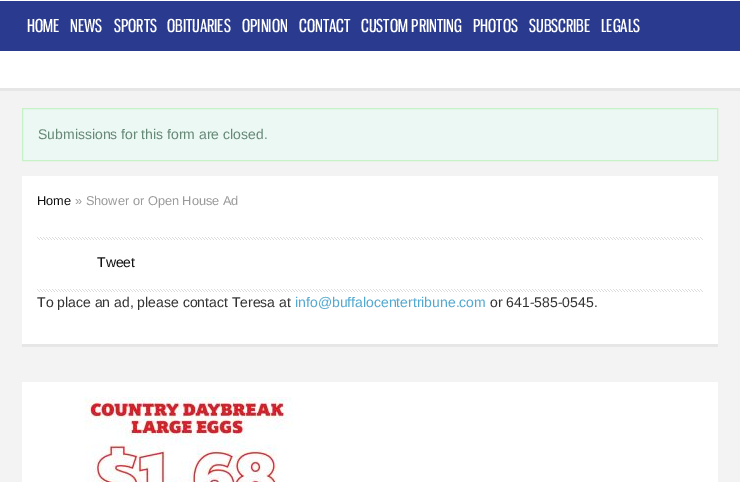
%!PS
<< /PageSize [740 482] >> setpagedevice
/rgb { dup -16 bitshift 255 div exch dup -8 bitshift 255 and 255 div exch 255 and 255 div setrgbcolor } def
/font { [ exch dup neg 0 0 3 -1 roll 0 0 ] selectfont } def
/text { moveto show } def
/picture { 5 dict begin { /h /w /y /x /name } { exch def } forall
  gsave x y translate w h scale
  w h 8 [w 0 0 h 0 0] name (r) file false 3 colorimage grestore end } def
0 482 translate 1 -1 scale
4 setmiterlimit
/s1 { /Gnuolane-Regular 17.5 font 16#FFFFFF rgb } def
/s2 { /LiberationSans-Regular 14 font 16#668877 rgb } def
/s3 { /LiberationSans-Regular 12.8 font 16#111111 rgb } def
/s4 { /LiberationSans-Regular 12.8 font 16#999999 rgb } def
/s5 { /LiberationSans-Regular 14 font 16#111111 rgb } def
/s6 { /LiberationSans-Regular 14 font 16#333333 rgb } def
/s7 { /LiberationSans-Regular 14 font 16#53A8D0 rgb } def
16#F3F3F3 rgb
0 0 740 482 rectfill
16#FFFFFF rgb
0 0 740 1 rectfill
16#2A3A8E rgb
0 1 740 50 rectfill
16#E6E6E6 rgb
0 88 740 3 rectfill
s1
(HOME) 27 32 text
(NEWS) 70 32 text
(SPORTS) 114 32 text
(OBITUARIES) 167 32 text
(OPINION) 242 32 text
(CONTACT) 299 32 text
(CUSTOM PRINTING) 361 32 text
(PHOTOS) 473 32 text
(SUBSCRIBE) 529 32 text
(LEGALS) 601 32 text
0 51 740 37 rectfill
16#ECF8F4 rgb
22.5 108.5 moveto 717.5 108.5 lineto 717.5 160.5 lineto 22.5 160.5 lineto closepath gsave fill grestore
16#C7F2C8 rgb
stroke
s2
(Submissions for this form are closed.) 38 139 text
16#FFFFFF rgb
22 176 696 168 rectfill
16#E6E6E6 rgb
22 344 696 3 rectfill
s3
(Home) 37 205 text
s4
(» Shower or Open House Ad) 75 205 text
(pic1.raw) 37 237 666 3 picture
(pic1.raw) 37 289 666 3 picture
s5
(Tweet) 97 267 text
s6
(To place an ad, please contact Teresa at) 37 307 text
s7
(info@buffalocentertribune.com) 295 307 text
s6
(or 641-585-0545.) 490 307 text
16#FFFFFF rgb
22 382 696 100 rectfill
(pic2.raw) 84 397 209 85 picture
showpage
